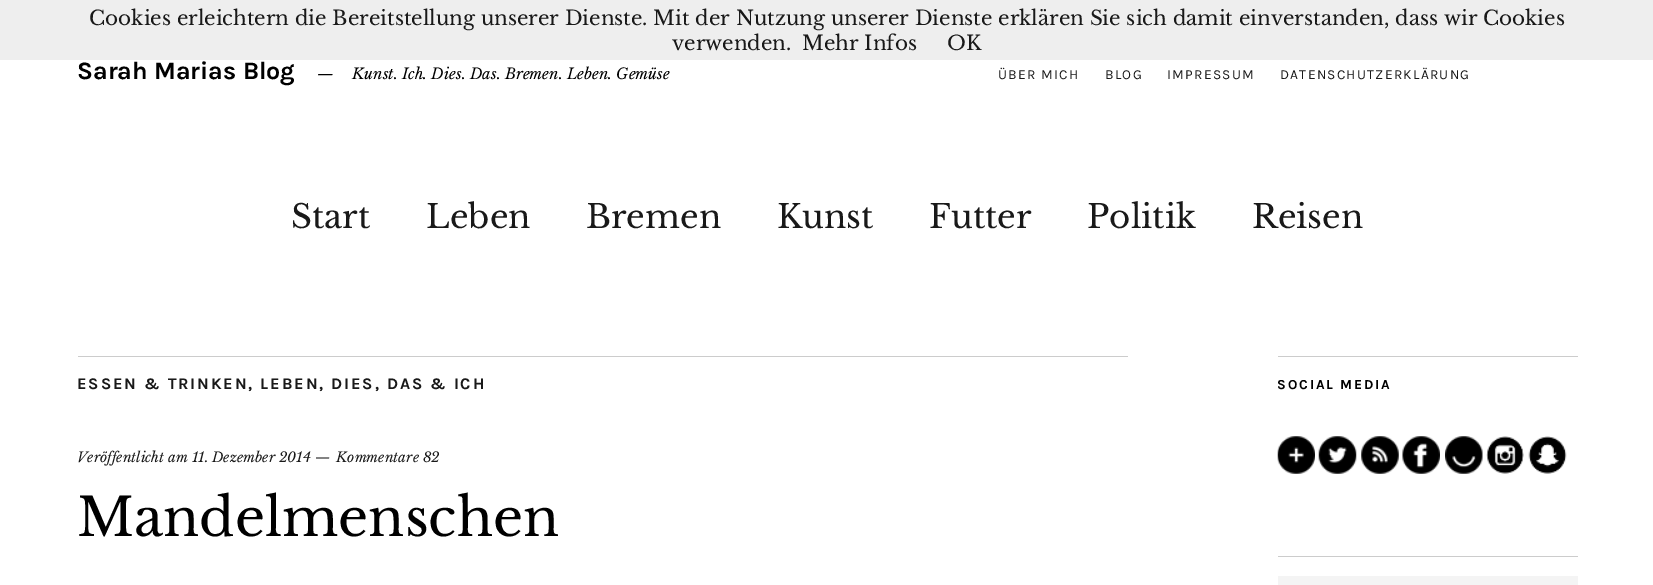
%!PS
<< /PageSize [1653 585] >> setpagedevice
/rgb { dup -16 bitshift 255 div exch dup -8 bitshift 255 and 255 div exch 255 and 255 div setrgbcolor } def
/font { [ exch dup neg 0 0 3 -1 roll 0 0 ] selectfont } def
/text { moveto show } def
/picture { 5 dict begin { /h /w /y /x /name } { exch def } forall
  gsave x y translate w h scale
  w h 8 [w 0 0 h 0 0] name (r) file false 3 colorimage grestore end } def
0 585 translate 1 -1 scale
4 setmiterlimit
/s1 { /LibreBaskerville-Regular 20 font 16#191919 rgb } def
/s2 { /Karla-Bold 25 font 16#000000 rgb } def
/s3 { /LibreBaskerville-Italic 15 font 16#000000 rgb } def
/s4 { /LibreBaskerville-Regular 32.5 font 16#191919 rgb } def
/s5 { /LibreBaskerville-Italic 13.75 font 16#191919 rgb } def
/s6 { /LibreBaskerville-Regular 52.5 font 16#000000 rgb } def
16#FFFFFF rgb
0 0 1653 585 rectfill
16#EEEEEE rgb
0 0 1653 60 rectfill
s1
(Cookies erleichtern die Bereitstellung unserer Dienste. Mit der Nutzung unserer Dienste erklären Sie sich damit einverstanden, dass wir Cookies) 89 25 text
(verwenden.) 672 50 text
(Mehr Infos) 802 50 text
(OK) 947 50 text
s2
(Sarah Marias Blog) 77 79 text
s3
(—) 317 79 text
(Kunst. Ich. Dies. Das. Bremen. Leben. Gemüse) 352 79 text
/Karla-Regular 13.75 font
16#191919 rgb
998 79 moveto 1.25 0 (ÜBER MICH) ashow
1105 79 moveto 1.25 0 (BLOG) ashow
1167 79 moveto 1.25 0 (IMPRESSUM) ashow
1280 79 moveto 1.25 0 (DATENSCHUTZERKLÄRUNG) ashow
s4
(Start) 291 228 text
(Leben) 426 228 text
(Bremen) 586 228 text
(Kunst) 777 228 text
(Futter) 929 228 text
(Politik) 1087 228 text
(Reisen) 1252 228 text
16#CCCCCC rgb
78 356 1050 1 rectfill
/Karla-Bold 16.25 font
16#191919 rgb
77 389 moveto 1.9 0 (ESSEN & TRINKEN, LEBEN, DIES, DAS & ICH) ashow
s5
(Veröffentlicht am 11. Dezember 2014 —) 77 462 text
(Kommentare 82) 336 462 text
s6
(Mandelmenschen) 77 536 text
16#CCCCCC rgb
1278 356 300 1 rectfill
1278 556 300 1 rectfill
/Karla-Bold 13.75 font
16#000000 rgb
1277 389 moveto 1.9 0 (SOCIAL MEDIA) ashow
(pic1.raw) 1277 436 38 38 picture
(pic2.raw) 1318 436 39 38 picture
(pic3.raw) 1361 436 38 38 picture
(pic4.raw) 1402 436 38 38 picture
(pic5.raw) 1445 436 38 38 picture
(pic6.raw) 1486 436 38 38 picture
(pic7.raw) 1528 436 39 38 picture
16#F4F4F4 rgb
1278 576 300 9 rectfill
showpage
